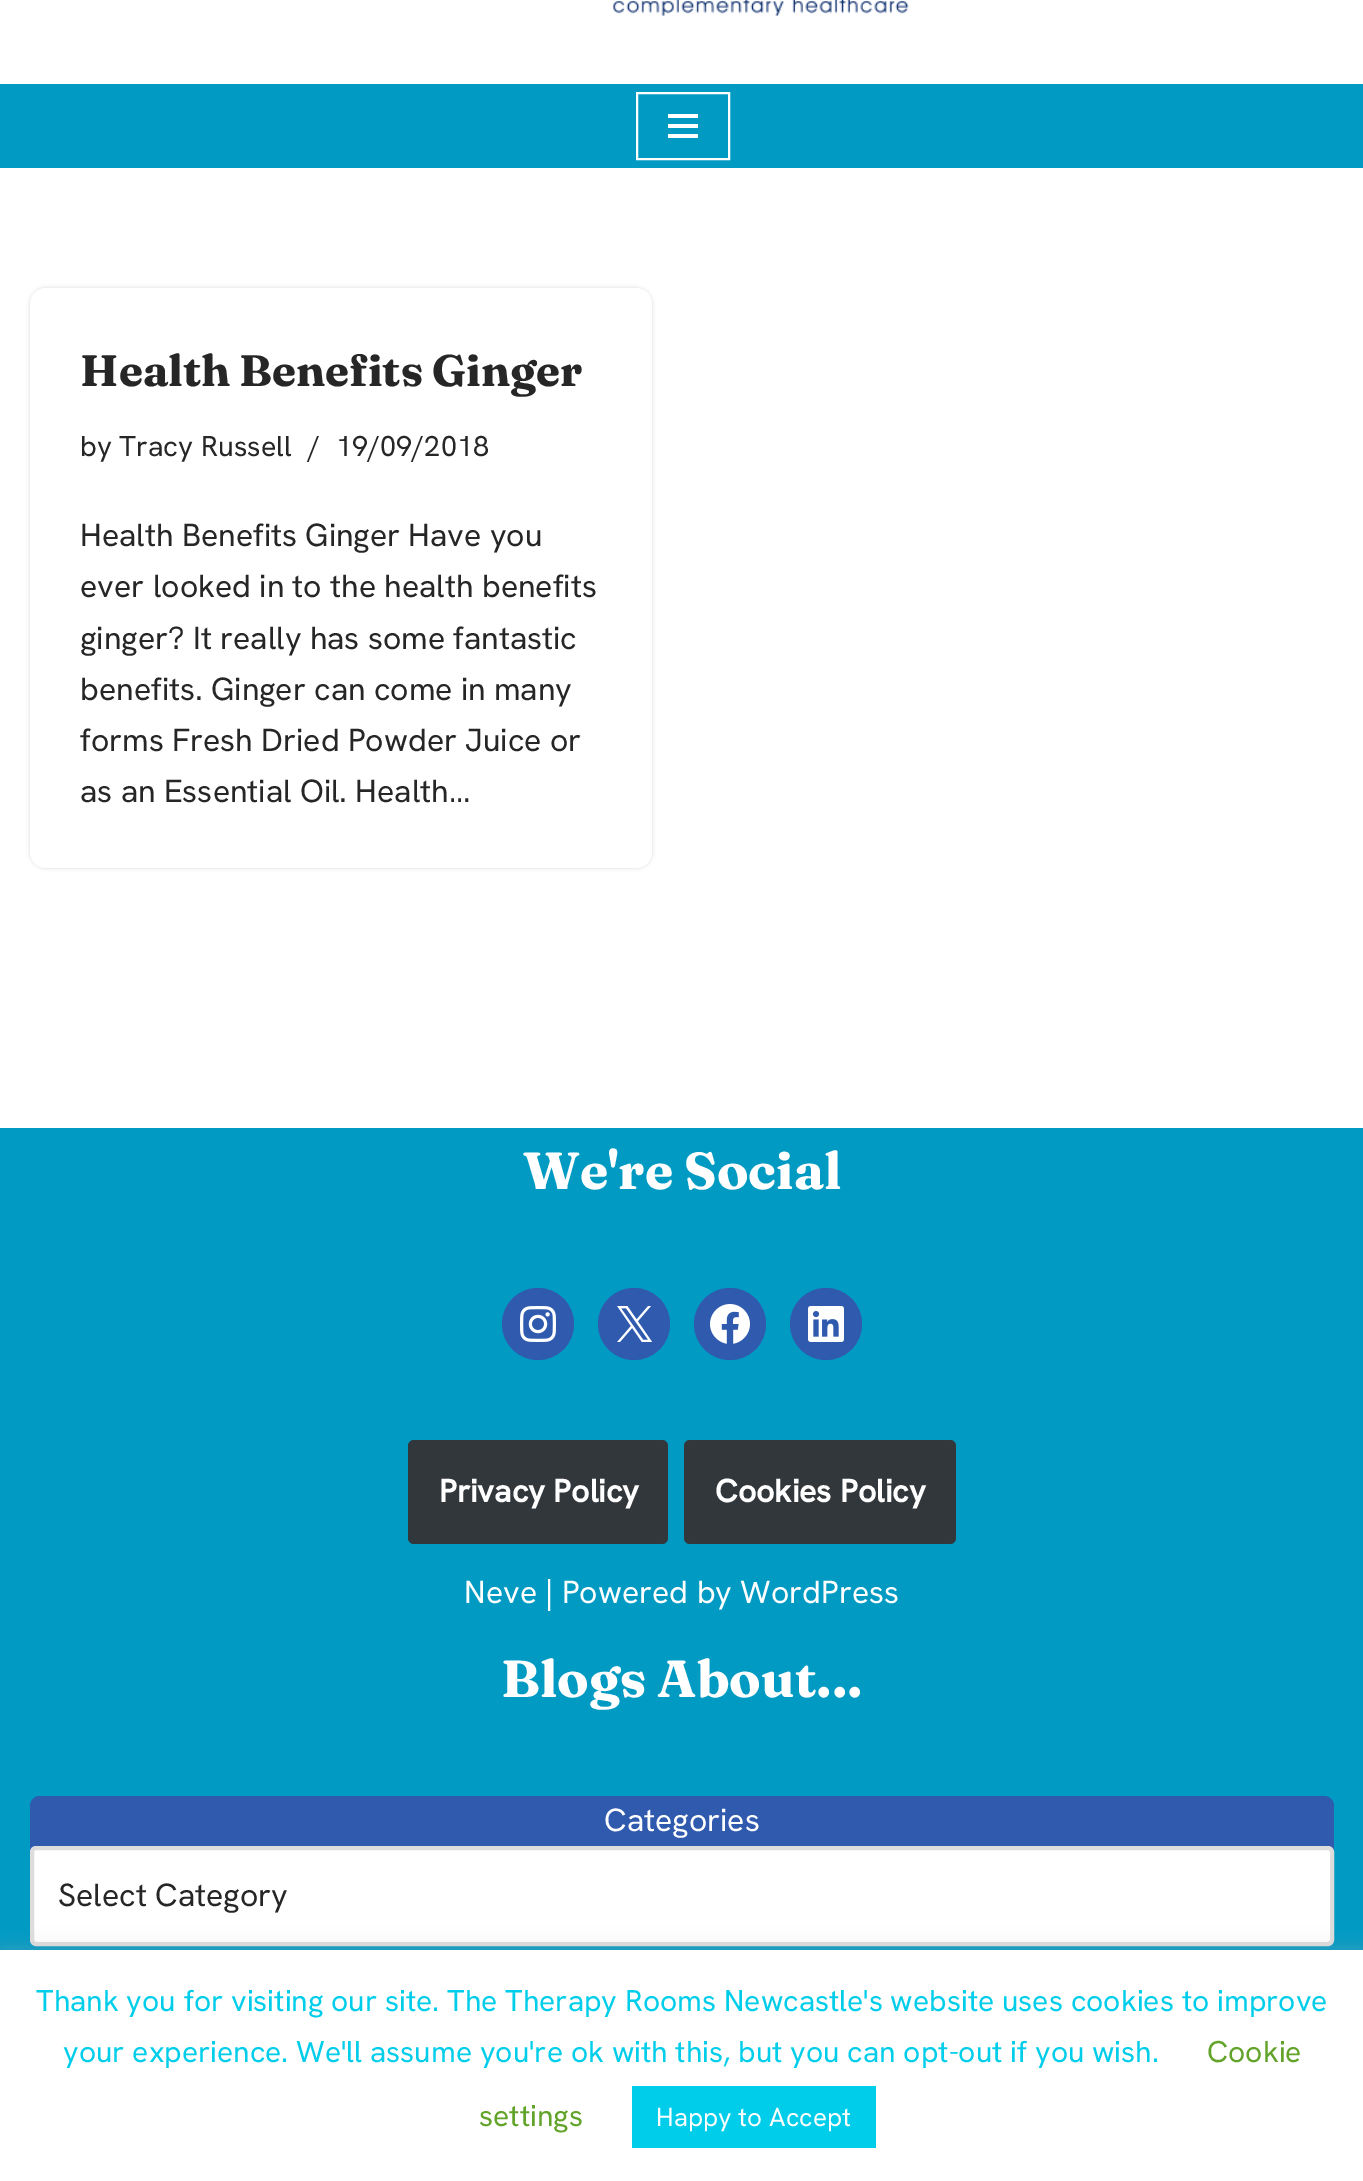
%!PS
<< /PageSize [1363 2181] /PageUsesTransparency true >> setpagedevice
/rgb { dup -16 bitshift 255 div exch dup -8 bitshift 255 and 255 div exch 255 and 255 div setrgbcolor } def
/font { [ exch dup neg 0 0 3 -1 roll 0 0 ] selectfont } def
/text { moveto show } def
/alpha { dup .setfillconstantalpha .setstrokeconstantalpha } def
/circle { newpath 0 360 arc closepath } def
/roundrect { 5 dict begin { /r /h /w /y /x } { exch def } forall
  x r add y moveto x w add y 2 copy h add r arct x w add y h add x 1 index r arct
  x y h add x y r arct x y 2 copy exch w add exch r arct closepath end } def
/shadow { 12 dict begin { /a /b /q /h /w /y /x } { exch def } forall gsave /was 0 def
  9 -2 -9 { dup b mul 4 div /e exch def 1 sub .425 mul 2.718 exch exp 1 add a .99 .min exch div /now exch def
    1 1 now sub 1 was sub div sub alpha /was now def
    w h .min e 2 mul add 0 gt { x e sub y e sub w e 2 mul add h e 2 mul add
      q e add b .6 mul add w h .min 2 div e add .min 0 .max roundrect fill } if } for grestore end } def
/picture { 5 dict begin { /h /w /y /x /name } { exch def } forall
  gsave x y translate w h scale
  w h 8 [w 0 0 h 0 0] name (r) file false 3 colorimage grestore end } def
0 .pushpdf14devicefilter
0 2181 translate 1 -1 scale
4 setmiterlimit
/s1 { /Fraunces-Bold 44 font 16#272626 rgb } def
/s2 { /HankenGrotesk-Regular 28.75 font 16#272626 rgb } def
/s3 { /HankenGrotesk-Regular 32 font 16#272626 rgb } def
/s4 { /Fraunces-Bold 52 font 16#FFFFFF rgb } def
/s5 { /HankenGrotesk-Bold 32 font 16#FFFFFF rgb } def
/s6 { /HankenGrotesk-Regular 32 font 16#FFFFFF rgb } def
/s7 { /HankenGrotesk-Regular 30 font 16#00CDE9 rgb } def
/s8 { /HankenGrotesk-Regular 30 font 16#62A329 rgb } def
/s9 { /HankenGrotesk-Regular 26 font 16#FFFFFF rgb } def
16#FFFFFF rgb
0 0 1363 2181 rectfill
(pic1.raw) 612 0 297 16 picture
16#009AC3 rgb
0 84 1363 84 rectfill
16#FFFFFF rgb
2 setlinewidth
637 93 92 66 rectstroke
668 114 30 4 rectfill
668 124 30 4 rectfill
668 134 30 4 rectfill
16#000000 rgb
30 288 622 580 16 2 0.15 shadow
16#FFFFFF rgb
30 288 622 580 16 roundrect fill
s1
(Health Benefits Ginger) 80 386 text
s2
(by Tracy Russell) 80 456 text
(/) 308 456 text
(19/09/2018) 336 456 text
s3
(Health Benefits Ginger Have you) 80 546 text
(ever looked in to the health benefits) 80 597 text
(ginger? It really has some fantastic) 80 649 text
(benefits. Ginger can come in many) 80 700 text
(forms Fresh Dried Powder Juice or) 80 751 text
(as an Essential Oil. Health…) 80 802 text
16#009AC3 rgb
0 1128 1363 822 rectfill
s4
(We're Social) 523 1189 text
16#2F5AAE rgb
538 1324 36 circle fill
(pic2.raw) 520 1306 36 36 picture
634 1324 36 circle fill
(pic3.raw) 617 1306 36 36 picture
730 1324 36 circle fill
(pic4.raw) 710 1304 40 40 picture
826 1324 36 circle fill
(pic5.raw) 808 1306 36 36 picture
16#32373C rgb
408 1440 260 104 6 roundrect fill
s5
(Privacy Policy) 439 1502 text
16#32373C rgb
684 1440 272 104 6 roundrect fill
s5
(Cookies Policy) 715 1502 text
s6
(Neve | Powered by WordPress) 464 1603 text
s4
(Blogs About...) 501 1697 text
16#2F5AAE rgb
30 1796 1304 150 10 roundrect fill
s6
(Categories) 604 1831 text
32 1848 1300 96 4 roundrect gsave fill grestore
16#DDDDDD rgb
4 setlinewidth
stroke
s3
(Select Category) 58 1906 text
16#ACABAB rgb
0 1948 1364 232 0 10 0.3 shadow
16#FFFFFF rgb
0 1950 1363 231 rectfill
s7
(Thank you for visiting our site. The Therapy Rooms Newcastle's website uses cookies to improve) 36 2011 text
(your experience. We'll assume you're ok with this, but you can opt-out if you wish.) 63 2062 text
s8
(Cookie) 1207 2062 text
(settings) 479 2126 text
16#00CDE9 rgb
632 2086 244 62 rectfill
s9
(Happy to Accept) 656 2126 text
.poppdf14devicefilter showpage
